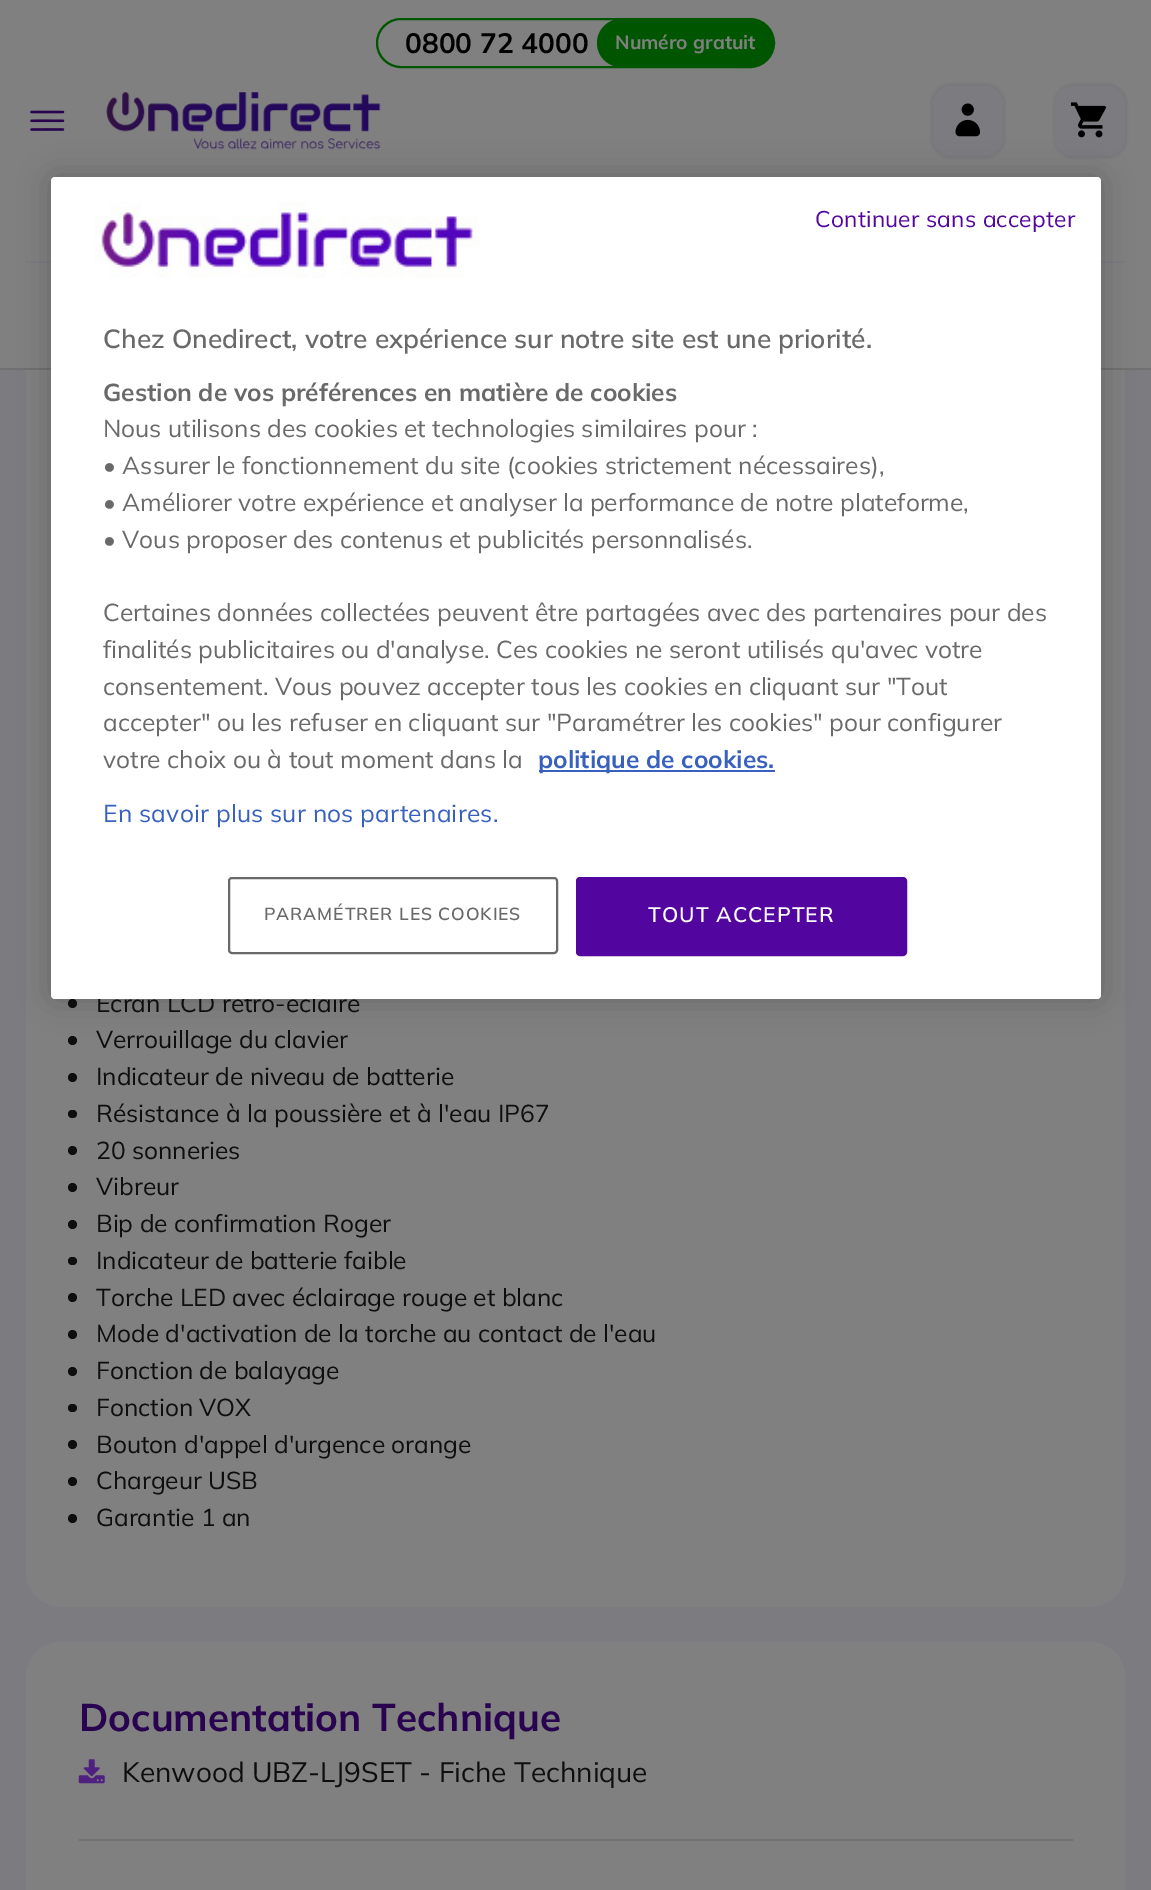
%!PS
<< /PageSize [1151 1890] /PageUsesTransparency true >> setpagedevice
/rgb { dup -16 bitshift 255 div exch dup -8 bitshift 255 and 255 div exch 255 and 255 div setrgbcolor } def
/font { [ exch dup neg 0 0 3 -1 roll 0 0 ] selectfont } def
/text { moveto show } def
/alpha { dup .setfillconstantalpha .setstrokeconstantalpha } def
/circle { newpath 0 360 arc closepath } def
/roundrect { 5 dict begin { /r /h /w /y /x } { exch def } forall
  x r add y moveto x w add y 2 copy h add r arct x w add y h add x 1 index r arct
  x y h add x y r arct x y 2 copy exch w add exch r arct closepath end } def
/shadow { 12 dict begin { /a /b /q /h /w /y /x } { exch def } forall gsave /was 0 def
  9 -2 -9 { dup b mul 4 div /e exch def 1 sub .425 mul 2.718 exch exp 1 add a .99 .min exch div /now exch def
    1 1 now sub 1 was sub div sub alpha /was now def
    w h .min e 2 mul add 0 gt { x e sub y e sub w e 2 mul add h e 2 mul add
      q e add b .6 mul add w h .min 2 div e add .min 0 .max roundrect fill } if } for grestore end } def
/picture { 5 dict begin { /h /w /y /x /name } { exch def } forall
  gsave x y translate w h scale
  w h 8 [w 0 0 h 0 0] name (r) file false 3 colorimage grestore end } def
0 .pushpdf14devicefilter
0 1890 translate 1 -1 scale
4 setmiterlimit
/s1 { /Mulish-Bold 28 font 16#010101 rgb } def
/s2 { /Mulish-Bold 19.25 font 16#808080 rgb } def
/s3 { /Mulish-Regular 24.5 font 16#0E0E0E rgb } def
/s4 { /Mulish-Bold 38.5 font 16#290350 rgb } def
/s5 { /Mulish-Regular 28 font 16#0E0E0E rgb } def
/s6 { /Mulish-SemiBold 26.25 font 16#696969 rgb } def
/s7 { /Mulish-Bold 24.5 font 16#696969 rgb } def
/s8 { /Mulish-Regular 24.5 font 16#696969 rgb } def
/s9 { /Mulish-Bold 24.5 font 16#3860BE rgb } def
16#7C7C80 rgb
0 0 1151 1890 rectfill
16#808080 rgb
26 -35 1099 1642 35 roundrect fill
0 0 1151 368 rectfill
16#707070 rgb
0 368 1151 2 rectfill
16#005500 rgb
2 setlinewidth
377 19 397 48 24 roundrect stroke
s1
(0800 72 4000) 405 53 text
16#005500 rgb
597 19 177 48 24 roundrect fill
s2
(Numéro gratuit) 615 49 text
(pic1.raw) 30 110 35 21 picture
(pic2.raw) 106 92 275 58 picture
16#1D0238 rgb
931 84 74 74 19 2 0.1 shadow
16#7C7C80 rgb
933 86 70 70 18 roundrect fill
(pic3.raw) 955 103 26 34 picture
16#1D0238 rgb
1054 84 73 74 19 2 0.1 shadow
16#7C7C80 rgb
1055 86 70 70 18 roundrect fill
(pic4.raw) 1070 102 36 36 picture
26 261 1099 2 1 roundrect fill
16#0E0E0E rgb
72.5 1003.5 4.5 circle fill
s3
(Ecran LCD rétro-éclairé) 96 1012 text
72.5 1040.5 4.5 circle fill
(Verrouillage du clavier) 96 1048 text
72.5 1077.5 4.5 circle fill
(Indicateur de niveau de batterie) 96 1085 text
68 1110 9 8 4 roundrect fill
(Résistance à la poussière et à l'eau IP67) 96 1122 text
72.5 1150.5 4.5 circle fill
(20 sonneries) 96 1159 text
72.5 1187.5 4.5 circle fill
(Vibreur) 96 1195 text
72.5 1224.5 4.5 circle fill
(Bip de confirmation Roger) 96 1232 text
68 1257 9 8 4 roundrect fill
(Indicateur de batterie faible) 96 1269 text
72.5 1297.5 4.5 circle fill
(Torche LED avec éclairage rouge et blanc) 96 1306 text
72.5 1334.5 4.5 circle fill
(Mode d'activation de la torche au contact de l'eau) 96 1342 text
72.5 1371.5 4.5 circle fill
(Fonction de balayage) 96 1379 text
68 1404 9 8 4 roundrect fill
(Fonction VOX) 96 1416 text
72.5 1444.5 4.5 circle fill
(Bouton d'appel d'urgence orange) 96 1453 text
72.5 1481.5 4.5 circle fill
(Chargeur USB) 96 1489 text
72.5 1518.5 4.5 circle fill
(Garantie 1 an) 96 1526 text
16#808080 rgb
26 1642 1099 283 35 roundrect fill
s4
(Documentation Technique) 79 1731 text
(pic5.raw) 78 1759 27 25 picture
s5
(Kenwood UBZ-LJ9SET - Fiche Technique) 122 1782 text
16#707070 rgb
79 1839 994 2 rectfill
16#000000 rgb
51 177 1050 822 4 16 0.2 shadow
16#FFFFFF rgb
51 177 1050 822 4 roundrect fill
/Mulish-Regular 22.75 font
16#5305A0 rgb
815 227 moveto 0.25 0 (Continuer sans accepter) ashow
(pic6.raw) 94 201 386 77 picture
s6
(Chez Onedirect, votre expérience sur notre site est une priorité.) 103 348 text
s7
(Gestion de vos préférences en matière de cookies) 103 401 text
s8
(Nous utilisons des cookies et technologies similaires pour :) 103 437 text
(• Assurer le fonctionnement du site \(cookies strictement nécessaires\),) 103 474 text
(• Améliorer votre expérience et analyser la performance de notre plateforme,) 103 511 text
(• Vous proposer des contenus et publicités personnalisés.) 103 548 text
(Certaines données collectées peuvent être partagées avec des partenaires pour des) 103 621 text
(finalités publicitaires ou d'analyse. Ces cookies ne seront utilisés qu'avec votre) 103 658 text
(consentement. Vous pouvez accepter tous les cookies en cliquant sur "Tout) 103 695 text
(accepter" ou les refuser en cliquant sur "Paramétrer les cookies" pour configurer) 103 731 text
(votre choix ou à tout moment dans la) 103 768 text
16#3860BE rgb
539 770 236 2 rectfill
s9
(politique de cookies.) 538 768 text
/Mulish-Regular 24.5 font
103 822 moveto 0.25 0 (En savoir plus sur nos partenaires.) ashow
16#696969 rgb
229 878 328 75 3 roundrect stroke
/Mulish-SemiBold 17.5 font
264 920 moveto 0.9 0 (PARAMÉTRER LES COOKIES) ashow
16#5305A0 rgb
577 878 329 77 3 roundrect gsave fill grestore
stroke
/Mulish-SemiBold 21 font
16#FFFFFF rgb
648 922 moveto 1 0 (TOUT ACCEPTER) ashow
.poppdf14devicefilter showpage
